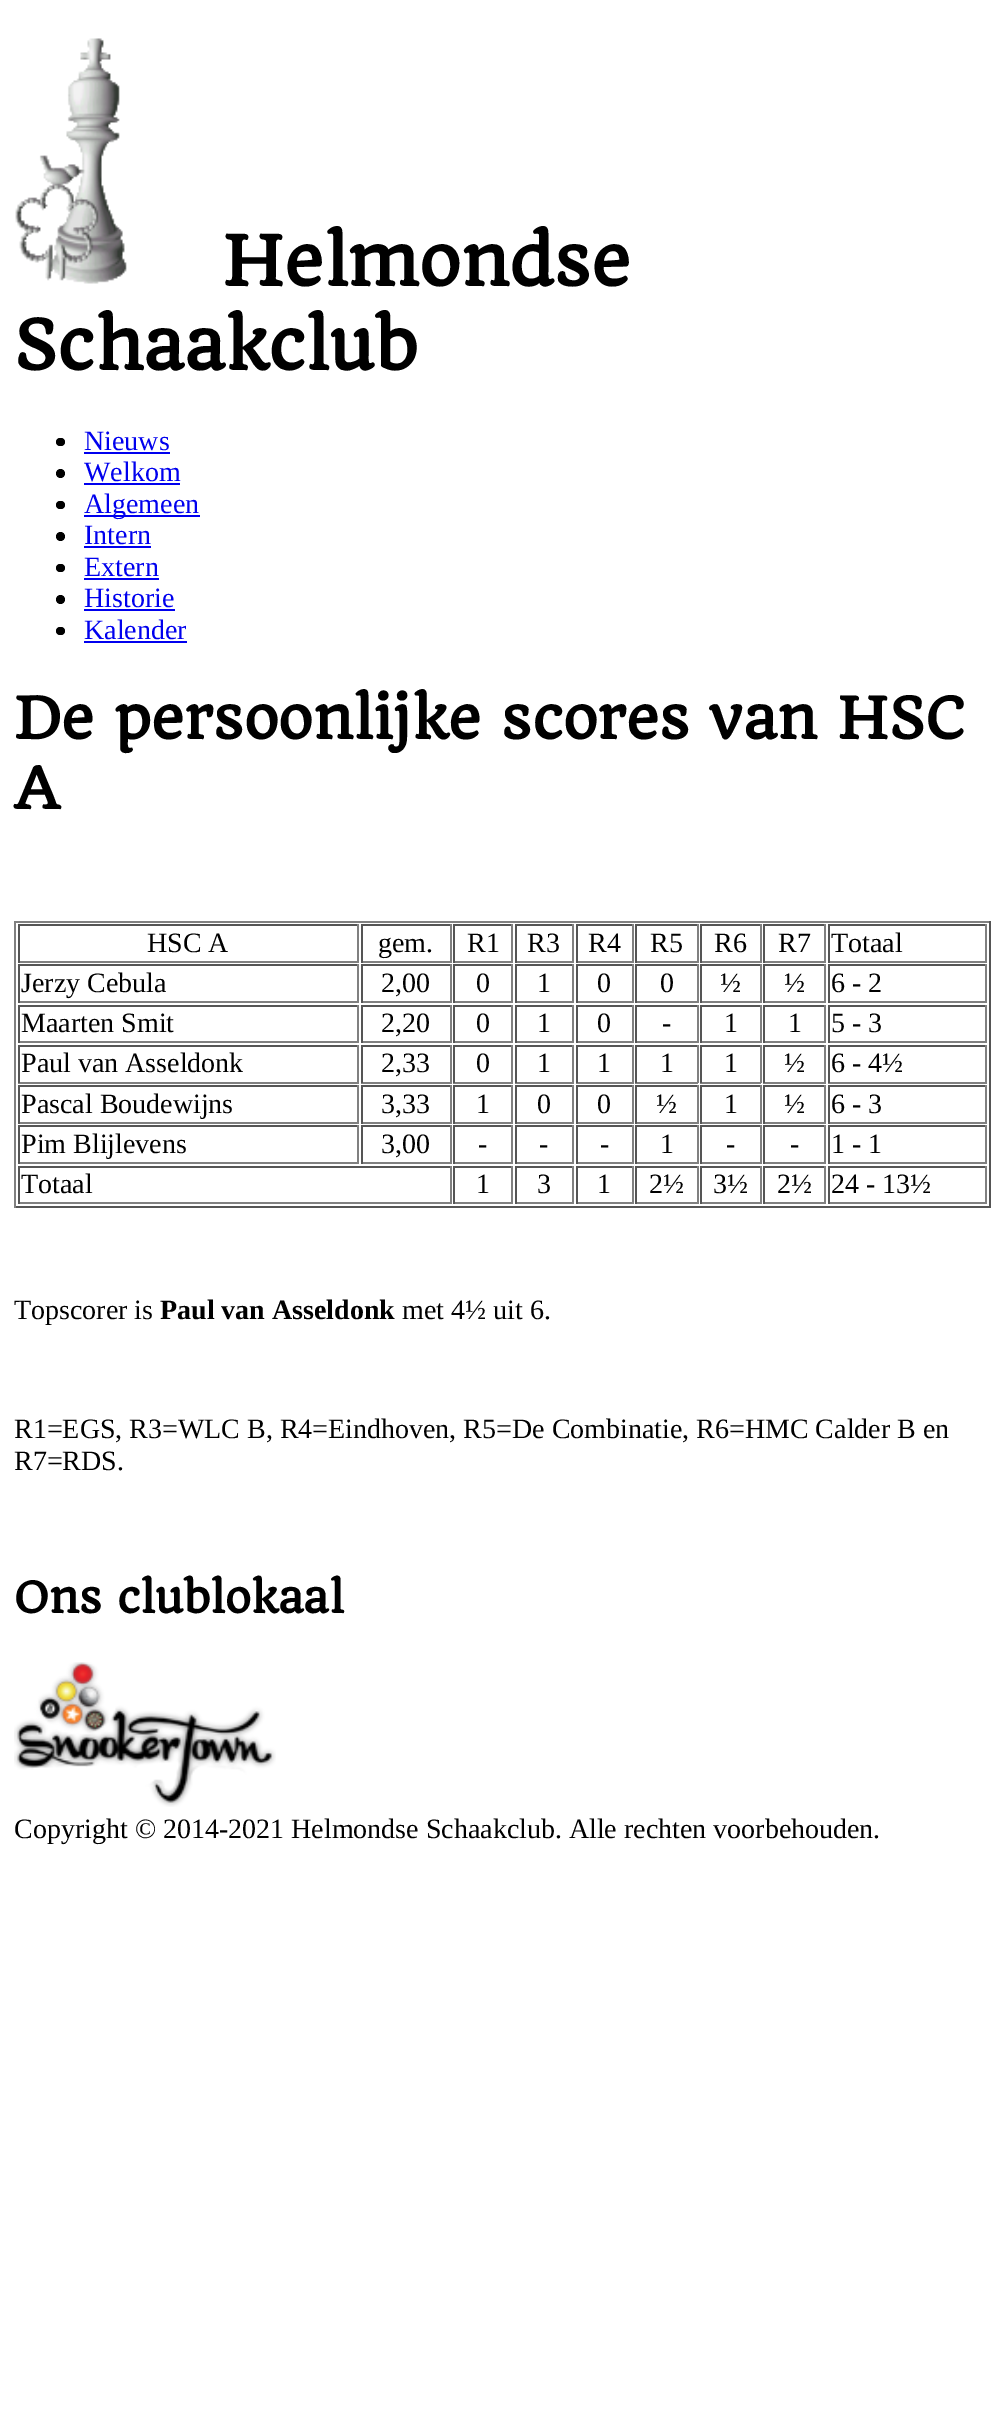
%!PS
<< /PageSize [1003 2425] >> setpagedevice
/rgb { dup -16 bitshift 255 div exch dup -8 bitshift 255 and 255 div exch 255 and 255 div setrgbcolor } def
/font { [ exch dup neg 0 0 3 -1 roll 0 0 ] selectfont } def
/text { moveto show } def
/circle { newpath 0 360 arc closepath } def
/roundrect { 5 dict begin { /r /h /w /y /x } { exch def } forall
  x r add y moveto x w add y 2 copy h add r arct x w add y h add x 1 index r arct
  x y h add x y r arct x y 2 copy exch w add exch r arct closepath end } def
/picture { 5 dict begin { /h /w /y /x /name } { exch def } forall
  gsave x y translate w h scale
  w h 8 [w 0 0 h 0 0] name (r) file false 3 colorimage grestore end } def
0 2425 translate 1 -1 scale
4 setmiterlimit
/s1 { /Quando-Bold 67.25 font 16#000000 rgb } def
/s2 { /LiberationSerif-Regular 28 font 16#0000EE rgb } def
/s3 { /Quando-Bold 56 font 16#000000 rgb } def
/s4 { /LiberationSerif-Regular 28 font 16#000000 rgb } def
/s5 { /LiberationSerif-Bold 28 font 16#000000 rgb } def
/s6 { /Quando-Bold 42 font 16#000000 rgb } def
16#FFFFFF rgb
0 0 1003 2425 rectfill
(pic1.raw) 15 38 112 246 picture
s1
(Helmondse) 222 286 text
(Schaakclub) 14 370 text
56 438 9 8 4 roundrect fill
s2
(Nieuws) 84 450 text
84 452 86 2 rectfill
16#000000 rgb
60.5 473.5 4.5 circle fill
s2
(Welkom) 84 481 text
84 483 96 2 rectfill
16#000000 rgb
56 501 9 8 4 roundrect fill
16#0000EE rgb
84 515 116 2 rectfill
(Algemeen) 84 513 text
16#000000 rgb
60.5 536.5 4.5 circle fill
s2
(Intern) 84 544 text
84 546 67 2 rectfill
16#000000 rgb
56 564 9 8 4 roundrect fill
s2
(Extern) 84 576 text
84 578 75 2 rectfill
16#000000 rgb
60.5 599.5 4.5 circle fill
s2
(Historie) 84 607 text
84 609 91 2 rectfill
16#000000 rgb
56 627 9 8 4 roundrect fill
s2
(Kalender) 84 639 text
84 641 103 2 rectfill
s3
(De persoonlijke scores van HSC) 14 739 text
(A) 14 809 text
16#808080 rgb
14 921 977 2 rectfill
16#555555 rgb
989 921 2 287 rectfill
14 1206 977 2 rectfill
16#808080 rgb
14 921 2 287 rectfill
16#555555 rgb
18 924 341 2 rectfill
16#808080 rgb
357 924 2 39 rectfill
18 961 341 2 rectfill
16#555555 rgb
18 924 2 39 rectfill
s4
(HSC A) 147 952 text
16#555555 rgb
361 924 91 2 rectfill
16#808080 rgb
450 924 2 39 rectfill
361 961 91 2 rectfill
16#555555 rgb
361 924 2 39 rectfill
s4
(gem.) 378 952 text
16#555555 rgb
453 924 60 2 rectfill
16#808080 rgb
511 924 2 39 rectfill
453 961 60 2 rectfill
16#555555 rgb
453 924 2 39 rectfill
s4
(R1) 467 952 text
16#555555 rgb
515 924 59 2 rectfill
16#808080 rgb
572 924 2 39 rectfill
515 961 59 2 rectfill
16#555555 rgb
515 924 2 39 rectfill
s4
(R3) 527 952 text
16#555555 rgb
576 924 58 2 rectfill
16#808080 rgb
632 924 2 39 rectfill
576 961 58 2 rectfill
16#555555 rgb
576 924 2 39 rectfill
s4
(R4) 588 952 text
16#555555 rgb
635 924 63 2 rectfill
16#808080 rgb
697 924 2 39 rectfill
635 961 63 2 rectfill
16#555555 rgb
635 924 2 39 rectfill
s4
(R5) 650 952 text
16#555555 rgb
700 924 61 2 rectfill
16#808080 rgb
760 924 2 39 rectfill
700 961 61 2 rectfill
16#555555 rgb
700 924 2 39 rectfill
s4
(R6) 714 952 text
16#555555 rgb
763 924 63 2 rectfill
16#808080 rgb
824 924 2 39 rectfill
763 961 63 2 rectfill
16#555555 rgb
763 924 2 39 rectfill
s4
(R7) 778 952 text
16#555555 rgb
828 924 159 2 rectfill
16#808080 rgb
985 924 2 39 rectfill
828 961 159 2 rectfill
16#555555 rgb
828 924 2 39 rectfill
s4
(Totaal) 831 952 text
16#555555 rgb
18 964 341 2 rectfill
16#808080 rgb
357 964 2 39 rectfill
18 1001 341 2 rectfill
16#555555 rgb
18 964 2 39 rectfill
s4
(Jerzy Cebula) 21 992 text
16#555555 rgb
361 964 91 2 rectfill
16#808080 rgb
450 964 2 39 rectfill
361 1001 91 2 rectfill
16#555555 rgb
361 964 2 39 rectfill
s4
(2,00) 381 992 text
16#555555 rgb
453 964 60 2 rectfill
16#808080 rgb
511 964 2 39 rectfill
453 1001 60 2 rectfill
16#555555 rgb
453 964 2 39 rectfill
s4
(0) 476 992 text
16#555555 rgb
515 964 59 2 rectfill
16#808080 rgb
572 964 2 39 rectfill
515 1001 59 2 rectfill
16#555555 rgb
515 964 2 39 rectfill
s4
(1) 537 992 text
16#555555 rgb
576 964 58 2 rectfill
16#808080 rgb
632 964 2 39 rectfill
576 1001 58 2 rectfill
16#555555 rgb
576 964 2 39 rectfill
s4
(0) 597 992 text
16#555555 rgb
635 964 63 2 rectfill
16#808080 rgb
697 964 2 39 rectfill
635 1001 63 2 rectfill
16#555555 rgb
635 964 2 39 rectfill
s4
(0) 660 992 text
16#555555 rgb
700 964 61 2 rectfill
16#808080 rgb
760 964 2 39 rectfill
700 1001 61 2 rectfill
16#555555 rgb
700 964 2 39 rectfill
s4
(½) 720 992 text
16#555555 rgb
763 964 63 2 rectfill
16#808080 rgb
824 964 2 39 rectfill
763 1001 63 2 rectfill
16#555555 rgb
763 964 2 39 rectfill
s4
(½) 784 992 text
16#555555 rgb
828 964 159 2 rectfill
16#808080 rgb
985 964 2 39 rectfill
828 1001 159 2 rectfill
16#555555 rgb
828 964 2 39 rectfill
s4
(6 - 2) 831 992 text
16#555555 rgb
18 1005 341 2 rectfill
16#808080 rgb
357 1005 2 38 rectfill
18 1041 341 2 rectfill
16#555555 rgb
18 1005 2 38 rectfill
s4
(Maarten Smit) 21 1032 text
16#555555 rgb
361 1005 91 2 rectfill
16#808080 rgb
450 1005 2 38 rectfill
361 1041 91 2 rectfill
16#555555 rgb
361 1005 2 38 rectfill
s4
(2,20) 381 1032 text
16#555555 rgb
453 1005 60 2 rectfill
16#808080 rgb
511 1005 2 38 rectfill
453 1041 60 2 rectfill
16#555555 rgb
453 1005 2 38 rectfill
s4
(0) 476 1032 text
16#555555 rgb
515 1005 59 2 rectfill
16#808080 rgb
572 1005 2 38 rectfill
515 1041 59 2 rectfill
16#555555 rgb
515 1005 2 38 rectfill
s4
(1) 537 1032 text
16#555555 rgb
576 1005 58 2 rectfill
16#808080 rgb
632 1005 2 38 rectfill
576 1041 58 2 rectfill
16#555555 rgb
576 1005 2 38 rectfill
s4
(0) 597 1032 text
16#555555 rgb
635 1005 63 2 rectfill
16#808080 rgb
697 1005 2 38 rectfill
635 1041 63 2 rectfill
16#555555 rgb
635 1005 2 38 rectfill
s4
(-) 662 1032 text
16#555555 rgb
700 1005 61 2 rectfill
16#808080 rgb
760 1005 2 38 rectfill
700 1041 61 2 rectfill
16#555555 rgb
700 1005 2 38 rectfill
s4
(1) 724 1032 text
16#555555 rgb
763 1005 63 2 rectfill
16#808080 rgb
824 1005 2 38 rectfill
763 1041 63 2 rectfill
16#555555 rgb
763 1005 2 38 rectfill
s4
(1) 788 1032 text
16#555555 rgb
828 1005 159 2 rectfill
16#808080 rgb
985 1005 2 38 rectfill
828 1041 159 2 rectfill
16#555555 rgb
828 1005 2 38 rectfill
s4
(5 - 3) 831 1032 text
16#555555 rgb
18 1045 341 2 rectfill
16#808080 rgb
357 1045 2 38 rectfill
18 1082 341 2 rectfill
16#555555 rgb
18 1045 2 38 rectfill
s4
(Paul van Asseldonk) 21 1072 text
16#555555 rgb
361 1045 91 2 rectfill
16#808080 rgb
450 1045 2 38 rectfill
361 1082 91 2 rectfill
16#555555 rgb
361 1045 2 38 rectfill
s4
(2,33) 381 1072 text
16#555555 rgb
453 1045 60 2 rectfill
16#808080 rgb
511 1045 2 38 rectfill
453 1082 60 2 rectfill
16#555555 rgb
453 1045 2 38 rectfill
s4
(0) 476 1072 text
16#555555 rgb
515 1045 59 2 rectfill
16#808080 rgb
572 1045 2 38 rectfill
515 1082 59 2 rectfill
16#555555 rgb
515 1045 2 38 rectfill
s4
(1) 537 1072 text
16#555555 rgb
576 1045 58 2 rectfill
16#808080 rgb
632 1045 2 38 rectfill
576 1082 58 2 rectfill
16#555555 rgb
576 1045 2 38 rectfill
s4
(1) 597 1072 text
16#555555 rgb
635 1045 63 2 rectfill
16#808080 rgb
697 1045 2 38 rectfill
635 1082 63 2 rectfill
16#555555 rgb
635 1045 2 38 rectfill
s4
(1) 660 1072 text
16#555555 rgb
700 1045 61 2 rectfill
16#808080 rgb
760 1045 2 38 rectfill
700 1082 61 2 rectfill
16#555555 rgb
700 1045 2 38 rectfill
s4
(1) 724 1072 text
16#555555 rgb
763 1045 63 2 rectfill
16#808080 rgb
824 1045 2 38 rectfill
763 1082 63 2 rectfill
16#555555 rgb
763 1045 2 38 rectfill
s4
(½) 784 1072 text
16#555555 rgb
828 1045 159 2 rectfill
16#808080 rgb
985 1045 2 38 rectfill
828 1082 159 2 rectfill
16#555555 rgb
828 1045 2 38 rectfill
s4
(6 - 4½) 831 1072 text
16#555555 rgb
18 1085 341 2 rectfill
16#808080 rgb
357 1085 2 39 rectfill
18 1122 341 2 rectfill
16#555555 rgb
18 1085 2 39 rectfill
s4
(Pascal Boudewijns) 21 1113 text
16#555555 rgb
361 1085 91 2 rectfill
16#808080 rgb
450 1085 2 39 rectfill
361 1122 91 2 rectfill
16#555555 rgb
361 1085 2 39 rectfill
s4
(3,33) 381 1113 text
16#555555 rgb
453 1085 60 2 rectfill
16#808080 rgb
511 1085 2 39 rectfill
453 1122 60 2 rectfill
16#555555 rgb
453 1085 2 39 rectfill
s4
(1) 476 1113 text
16#555555 rgb
515 1085 59 2 rectfill
16#808080 rgb
572 1085 2 39 rectfill
515 1122 59 2 rectfill
16#555555 rgb
515 1085 2 39 rectfill
s4
(0) 537 1113 text
16#555555 rgb
576 1085 58 2 rectfill
16#808080 rgb
632 1085 2 39 rectfill
576 1122 58 2 rectfill
16#555555 rgb
576 1085 2 39 rectfill
s4
(0) 597 1113 text
16#555555 rgb
635 1085 63 2 rectfill
16#808080 rgb
697 1085 2 39 rectfill
635 1122 63 2 rectfill
16#555555 rgb
635 1085 2 39 rectfill
s4
(½) 656 1113 text
16#555555 rgb
700 1085 61 2 rectfill
16#808080 rgb
760 1085 2 39 rectfill
700 1122 61 2 rectfill
16#555555 rgb
700 1085 2 39 rectfill
s4
(1) 724 1113 text
16#555555 rgb
763 1085 63 2 rectfill
16#808080 rgb
824 1085 2 39 rectfill
763 1122 63 2 rectfill
16#555555 rgb
763 1085 2 39 rectfill
s4
(½) 784 1113 text
16#555555 rgb
828 1085 159 2 rectfill
16#808080 rgb
985 1085 2 39 rectfill
828 1122 159 2 rectfill
16#555555 rgb
828 1085 2 39 rectfill
s4
(6 - 3) 831 1113 text
16#555555 rgb
18 1125 341 2 rectfill
16#808080 rgb
357 1125 2 39 rectfill
18 1162 341 2 rectfill
16#555555 rgb
18 1125 2 39 rectfill
s4
(Pim Blijlevens) 21 1153 text
16#555555 rgb
361 1125 91 2 rectfill
16#808080 rgb
450 1125 2 39 rectfill
361 1162 91 2 rectfill
16#555555 rgb
361 1125 2 39 rectfill
s4
(3,00) 381 1153 text
16#555555 rgb
453 1125 60 2 rectfill
16#808080 rgb
511 1125 2 39 rectfill
453 1162 60 2 rectfill
16#555555 rgb
453 1125 2 39 rectfill
s4
(-) 478 1153 text
16#555555 rgb
515 1125 59 2 rectfill
16#808080 rgb
572 1125 2 39 rectfill
515 1162 59 2 rectfill
16#555555 rgb
515 1125 2 39 rectfill
s4
(-) 539 1153 text
16#555555 rgb
576 1125 58 2 rectfill
16#808080 rgb
632 1125 2 39 rectfill
576 1162 58 2 rectfill
16#555555 rgb
576 1125 2 39 rectfill
s4
(-) 600 1153 text
16#555555 rgb
635 1125 63 2 rectfill
16#808080 rgb
697 1125 2 39 rectfill
635 1162 63 2 rectfill
16#555555 rgb
635 1125 2 39 rectfill
s4
(1) 660 1153 text
16#555555 rgb
700 1125 61 2 rectfill
16#808080 rgb
760 1125 2 39 rectfill
700 1162 61 2 rectfill
16#555555 rgb
700 1125 2 39 rectfill
s4
(-) 726 1153 text
16#555555 rgb
763 1125 63 2 rectfill
16#808080 rgb
824 1125 2 39 rectfill
763 1162 63 2 rectfill
16#555555 rgb
763 1125 2 39 rectfill
s4
(-) 790 1153 text
16#555555 rgb
828 1125 159 2 rectfill
16#808080 rgb
985 1125 2 39 rectfill
828 1162 159 2 rectfill
16#555555 rgb
828 1125 2 39 rectfill
s4
(1 - 1) 831 1153 text
16#555555 rgb
18 1166 434 2 rectfill
16#808080 rgb
450 1166 2 38 rectfill
18 1202 434 2 rectfill
16#555555 rgb
18 1166 2 38 rectfill
s4
(Totaal) 21 1193 text
16#555555 rgb
453 1166 60 2 rectfill
16#808080 rgb
511 1166 2 38 rectfill
453 1202 60 2 rectfill
16#555555 rgb
453 1166 2 38 rectfill
s4
(1) 476 1193 text
16#555555 rgb
515 1166 59 2 rectfill
16#808080 rgb
572 1166 2 38 rectfill
515 1202 59 2 rectfill
16#555555 rgb
515 1166 2 38 rectfill
s4
(3) 537 1193 text
16#555555 rgb
576 1166 58 2 rectfill
16#808080 rgb
632 1166 2 38 rectfill
576 1202 58 2 rectfill
16#555555 rgb
576 1166 2 38 rectfill
s4
(1) 597 1193 text
16#555555 rgb
635 1166 63 2 rectfill
16#808080 rgb
697 1166 2 38 rectfill
635 1202 63 2 rectfill
16#555555 rgb
635 1166 2 38 rectfill
s4
(2½) 649 1193 text
16#555555 rgb
700 1166 61 2 rectfill
16#808080 rgb
760 1166 2 38 rectfill
700 1202 61 2 rectfill
16#555555 rgb
700 1166 2 38 rectfill
s4
(3½) 713 1193 text
16#555555 rgb
763 1166 63 2 rectfill
16#808080 rgb
824 1166 2 38 rectfill
763 1202 63 2 rectfill
16#555555 rgb
763 1166 2 38 rectfill
s4
(2½) 777 1193 text
16#555555 rgb
828 1166 159 2 rectfill
16#808080 rgb
985 1166 2 38 rectfill
828 1202 159 2 rectfill
16#555555 rgb
828 1166 2 38 rectfill
s4
(24 - 13½) 831 1193 text
(Topscorer is) 14 1319 text
s5
(Paul van Asseldonk) 160 1319 text
s4
(met 4½ uit 6.) 402 1319 text
(R1=EGS, R3=WLC B, R4=Eindhoven, R5=De Combinatie, R6=HMC Calder B en) 14 1438 text
(R7=RDS.) 14 1470 text
s6
(Ons clublokaal) 14 1613 text
(pic2.raw) 14 1662 262 145 picture
s4
(Copyright © 2014-2021 Helmondse Schaakclub. Alle rechten voorbehouden.) 14 1838 text
showpage
